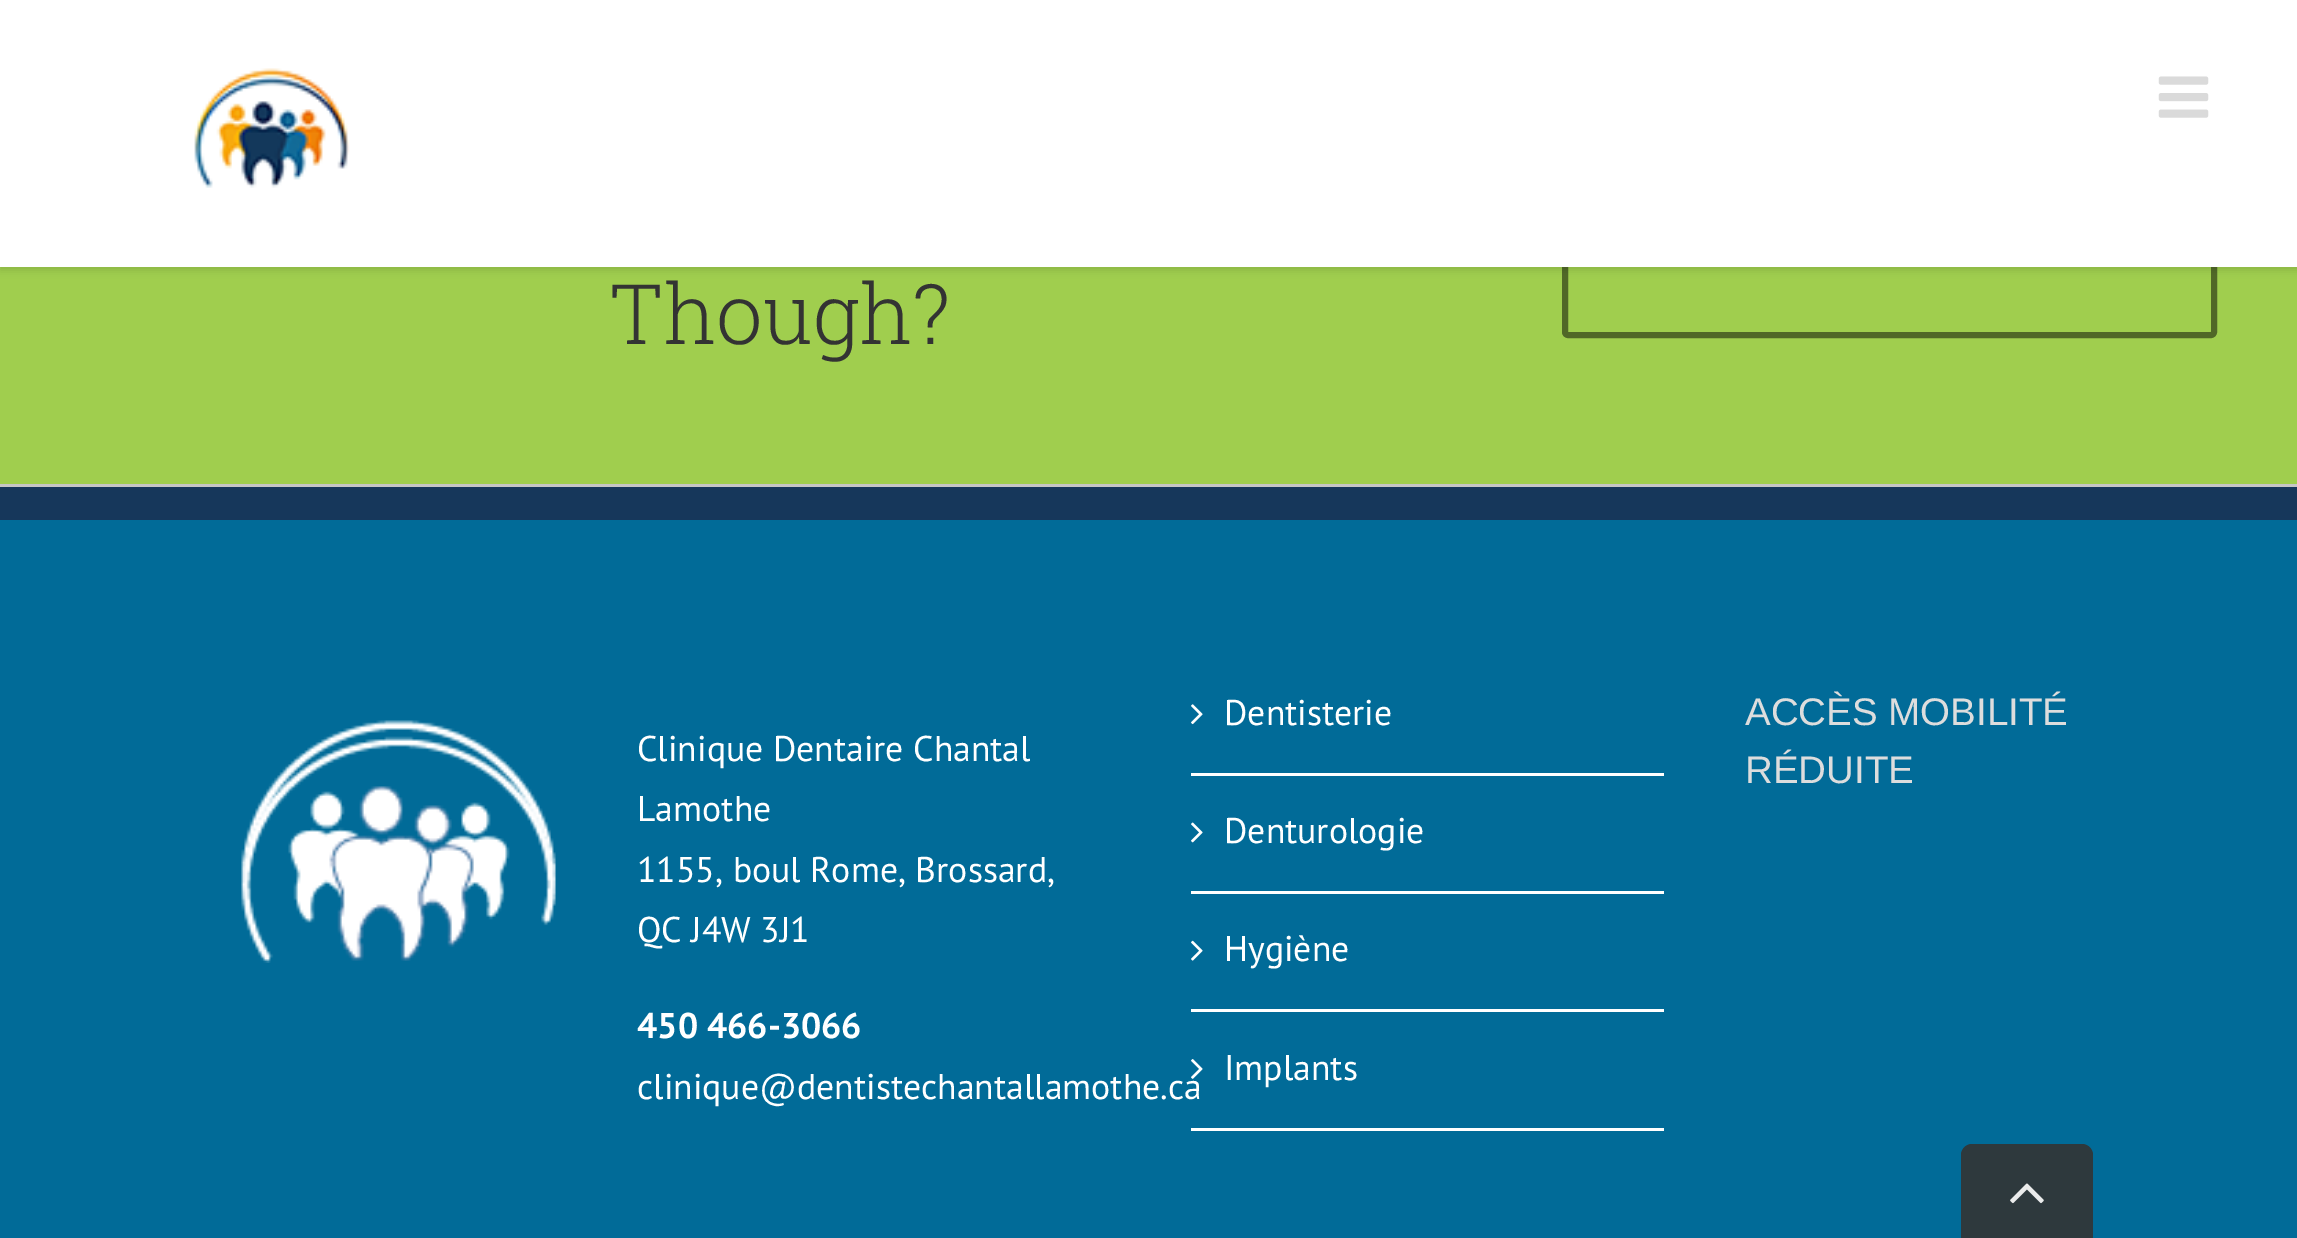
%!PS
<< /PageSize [2297 1238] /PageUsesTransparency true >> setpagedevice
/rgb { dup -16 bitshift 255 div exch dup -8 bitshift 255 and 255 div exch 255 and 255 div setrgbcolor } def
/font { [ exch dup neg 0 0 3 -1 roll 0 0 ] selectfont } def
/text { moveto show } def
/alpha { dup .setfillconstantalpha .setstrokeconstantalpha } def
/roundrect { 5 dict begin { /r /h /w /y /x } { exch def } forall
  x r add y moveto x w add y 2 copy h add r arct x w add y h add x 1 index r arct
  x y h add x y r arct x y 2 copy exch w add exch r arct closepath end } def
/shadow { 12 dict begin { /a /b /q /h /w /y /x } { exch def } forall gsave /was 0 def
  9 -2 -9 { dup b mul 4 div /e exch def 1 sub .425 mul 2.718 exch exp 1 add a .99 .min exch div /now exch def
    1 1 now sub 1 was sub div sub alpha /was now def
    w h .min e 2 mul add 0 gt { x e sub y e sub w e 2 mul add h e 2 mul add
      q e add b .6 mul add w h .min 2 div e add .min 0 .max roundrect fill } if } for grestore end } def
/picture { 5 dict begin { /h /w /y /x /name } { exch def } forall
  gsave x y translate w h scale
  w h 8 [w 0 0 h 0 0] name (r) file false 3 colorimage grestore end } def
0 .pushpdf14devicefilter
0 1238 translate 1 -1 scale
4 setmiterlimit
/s1 { /RobotoSlab-Light 83.5 font 16#333333 rgb } def
/s2 { /PTSans-Regular 35.75 font 16#FFFFFF rgb } def
/s3 { /PTSans-Bold 35.75 font 16#FFFFFF rgb } def
/s4 { /LiberationSans-Regular 38.5 font 16#DDDDDD rgb } def
16#A0CE4E rgb
0 0 2297 1238 rectfill
16#506727 rgb
6 setlinewidth
1565 121 649 214 3 roundrect stroke
16#000000 rgb
0 3 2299 267 0 4 0.12 shadow
16#FFFFFF rgb
0 0 2297 267 rectfill
(pic1.raw) 194 68 156 120 picture
(pic2.raw) 2158 76 51 42 picture
16#C6C6C6 rgb
0 484 2297 3 rectfill
s1
(Though?) 609 344 text
16#016B98 rgb
0 520 2297 718 rectfill
16#16375B rgb
0 487 2297 33 rectfill
(pic3.raw) 241 720 315 243 picture
s2
(Clinique Dentaire Chantal) 637 761 text
(Lamothe) 637 821 text
(1155, boul Rome, Brossard,) 637 882 text
(QC J4W 3J1) 637 942 text
s3
(450 466-3066) 637 1038 text
s2
(clinique@dentistechantallamothe.ca) 637 1099 text
1191 773 473 3 rectfill
(pic4.raw) 1191 704 12 21 picture
(Dentisterie) 1224 725 text
1191 891 473 3 rectfill
(pic5.raw) 1191 822 12 21 picture
(Denturologie) 1224 843 text
1191 1009 473 3 rectfill
(pic6.raw) 1191 940 12 21 picture
(Hygiène) 1224 961 text
1191 1128 473 3 rectfill
(pic7.raw) 1191 1059 12 20 picture
(Implants) 1224 1080 text
s4
(ACCÈS MOBILITÉ) 1745 725 text
(RÉDUITE) 1745 783 text
16#2E393D rgb
1972 1144 moveto 2082 1144 lineto 2088 1144 2093 1149 2093 1155 curveto 2093 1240 lineto 1961 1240 lineto 1961 1155 lineto 1961 1149 1966 1144 1972 1144 curveto closepath fill
(pic8.raw) 2010 1183 34 21 picture
.poppdf14devicefilter showpage
